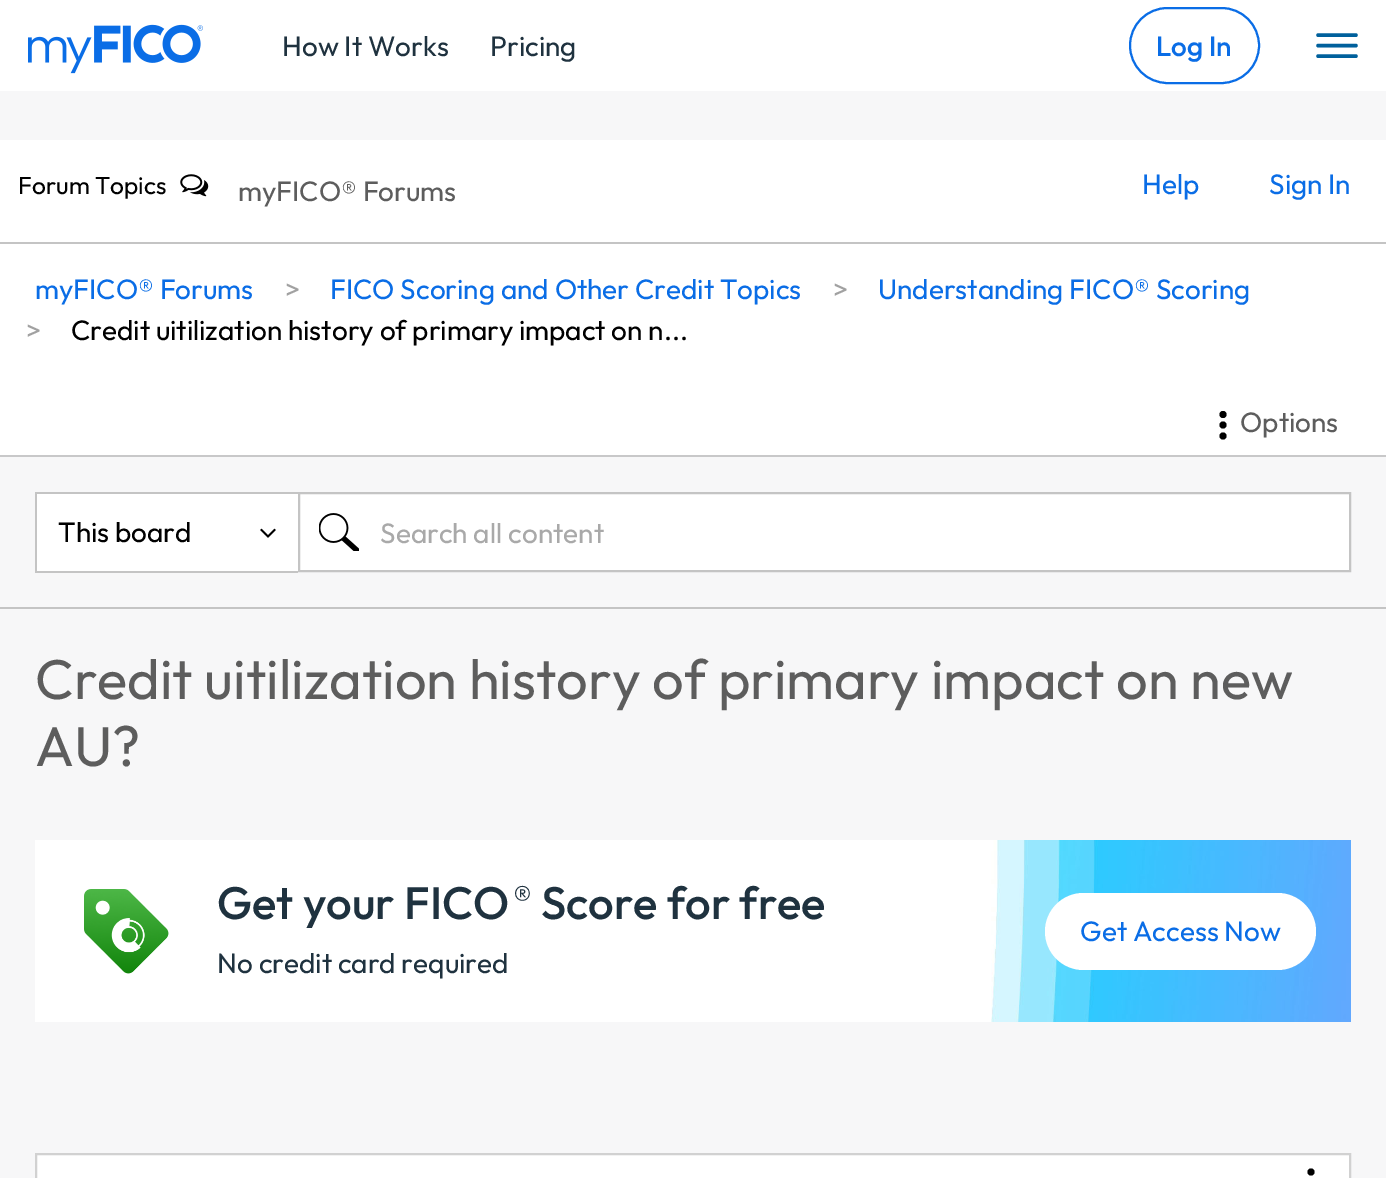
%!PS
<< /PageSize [1386 1178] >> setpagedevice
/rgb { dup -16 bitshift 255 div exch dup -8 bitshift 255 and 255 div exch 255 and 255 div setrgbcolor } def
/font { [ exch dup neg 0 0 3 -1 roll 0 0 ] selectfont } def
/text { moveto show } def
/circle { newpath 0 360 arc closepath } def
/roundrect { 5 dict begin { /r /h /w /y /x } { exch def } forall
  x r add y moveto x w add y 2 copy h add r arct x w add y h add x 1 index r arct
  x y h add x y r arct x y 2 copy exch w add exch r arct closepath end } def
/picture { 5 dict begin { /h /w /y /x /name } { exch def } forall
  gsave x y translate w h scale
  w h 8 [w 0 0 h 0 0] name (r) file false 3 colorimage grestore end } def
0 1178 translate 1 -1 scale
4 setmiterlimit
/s1 { /Outfit-Regular 28 font 16#1F323F rgb } def
/s2 { /Outfit-Medium 28 font 16#0A6DE6 rgb } def
/s3 { /Outfit-Regular 24.5 font 16#000000 rgb } def
/s4 { /Outfit-Regular 28 font 16#5D5D5D rgb } def
/s5 { /Outfit-Regular 28 font 16#0A6DE6 rgb } def
/s6 { /Outfit-Regular 28 font 16#A1A1A1 rgb } def
/s7 { /Outfit-Regular 28 font 16#000000 rgb } def
/s8 { /Outfit-Regular 28 font 16#A9A9A9 rgb } def
/s9 { /Outfit-Regular 56 font 16#5D5D5D rgb } def
/s10 { /Outfit-Medium 45.5 font 16#1F323F rgb } def
/s11 { /Outfit-Medium 34 font 16#1F323F rgb } def
16#F7F7F8 rgb
0 0 1386 1178 rectfill
16#FFFFFF rgb
0 0 1386 91 rectfill
(pic1.raw) 28 24 175 50 picture
s1
(How It Works) 282 56 text
(Pricing) 490 56 text
16#0A6DE6 rgb
2 setlinewidth
1130 8 129 75 37.5 roundrect stroke
s2
(Log In) 1156 56 text
16#00609C rgb
3.5 setlinewidth
1 setlinecap
1318 45.5 moveto 1356 45.5 lineto 1318 56 moveto 1356 56 lineto 1318 35 moveto 1356 35 lineto stroke
16#FFFFFF rgb
0 140 1386 315 rectfill
s3
(Forum Topics) 18 194 text
(pic2.raw) 180 174 29 23 picture
s4
(myFICO® Forums) 238 201 text
s5
(Help) 1142 194 text
(Sign In) 1269 194 text
16#C4C4C4 rgb
0 242 1386 2 rectfill
0 607 1386 2 rectfill
s5
(myFICO® Forums) 35 299 text
s6
(>) 285 299 text
s5
(FICO Scoring and Other Credit Topics) 330 299 text
s6
(>) 833 299 text
s5
(Understanding FICO® Scoring) 878 299 text
s6
(>) 26 340 text
s7
(Credit uitilization history of primary impact on n...) 71 340 text
1223 414.5 3.5 circle fill
1223 425 3.5 circle fill
1223 436 3.5 circle fill
s4
(Options) 1240 432 text
16#C8C8C9 rgb
0 455 1386 2 rectfill
16#FFFFFF rgb
37 494 261 77 rectfill
16#C4C4C4 rgb
35 492 263 2 rectfill
35 571 263 2 rectfill
35 492 2 80 rectfill
s7
(This board) 58 542 text
(pic3.raw) 260 528 16 10 picture
16#FFFFFF rgb
299 493 moveto 1350 493 lineto 1350 571 lineto 299 571 lineto closepath gsave fill grestore
16#C4C4C4 rgb
2 setlinewidth
0 setlinecap
stroke
(pic4.raw) 319 513 40 38 picture
s8
(Search all content) 380 543 text
s9
(Credit uitilization history of primary impact on new) 35 699 text
(AU?) 35 766 text
16#FFFFFF rgb
35 840 956 182 rectfill
(pic5.raw) 84 889 85 85 picture
s10
(Get your FICO) 217 919 text
s11
(®) 513 910 text
s10
(Score for free) 541 919 text
s1
(No credit card required) 217 973 text
(pic6.raw) 991 840 360 182 picture
16#FFFFFF rgb
1045 893 271 77 38.5 roundrect fill
s5
(Get Access Now) 1080 941 text
16#FFFFFF rgb
36 1154 moveto 1350 1154 lineto 1350 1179 lineto 36 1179 lineto closepath gsave fill grestore
16#D1D1D1 rgb
stroke
16#000000 rgb
1311 1172 3.5 circle fill
showpage
